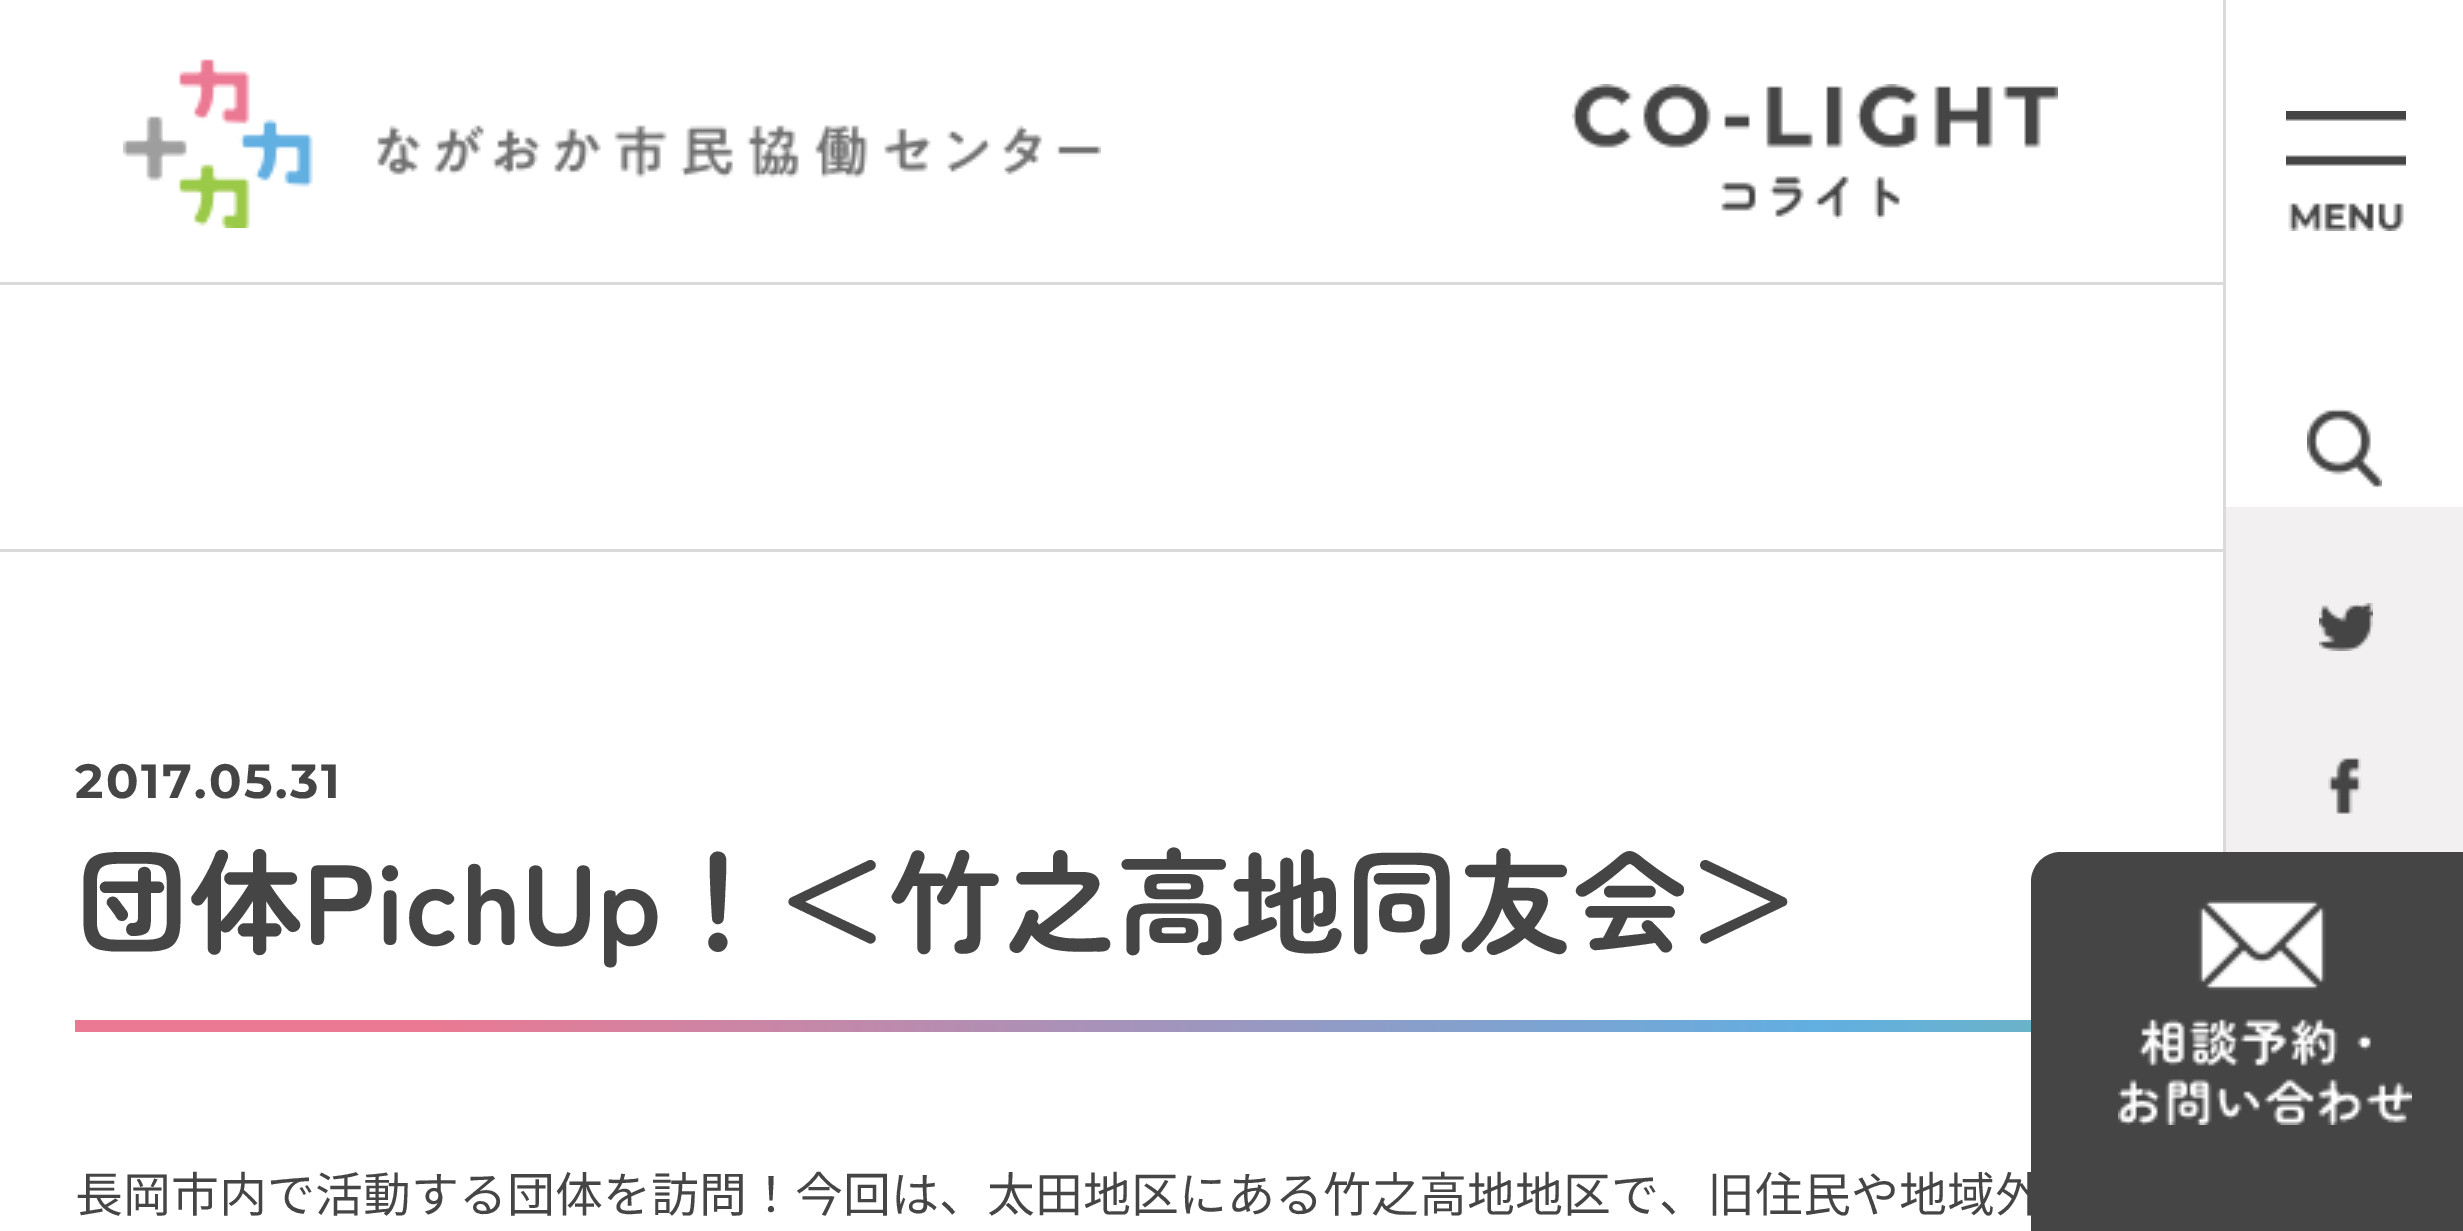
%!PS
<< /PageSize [2463 1231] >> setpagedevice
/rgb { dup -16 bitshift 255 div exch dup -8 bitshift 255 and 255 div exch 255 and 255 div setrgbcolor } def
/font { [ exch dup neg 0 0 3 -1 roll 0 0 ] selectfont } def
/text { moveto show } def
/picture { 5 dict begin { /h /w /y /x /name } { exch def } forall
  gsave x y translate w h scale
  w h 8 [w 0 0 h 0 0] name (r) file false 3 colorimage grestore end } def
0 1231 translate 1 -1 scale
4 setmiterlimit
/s1 { /ZenMaruGothic-Bold 114 font 16#454545 rgb } def
/s2 { /NotoSansJP-Regular 48 font 16#454545 rgb } def
16#FFFFFF rgb
0 0 2463 1231 rectfill
16#DADADA rgb
0 282 2223 3 rectfill
(pic1.raw) 123 59 978 169 picture
(pic2.raw) 1572 84 486 135 picture
0 549 2223 3 rectfill
/Montserrat-Bold 48 font
16#454545 rgb
75 798 moveto 2.4 0 (2017.05.31) ashow
s1
(団体PichUp！＜竹之高地同友会＞) 75 945 text
gsave 75 1020 moveto 2031 1020 lineto 2031 1032 lineto 75 1032 lineto closepath clip newpath
<< /ShadingType 2 /ColorSpace /DeviceRGB /Coords [75 1026 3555 1026] /Extend [true true] /Function << /FunctionType 3 /Domain [0 1] /Functions [<< /FunctionType 2 /Domain [0 1] /C0 [0.925 0.475 0.576] /C1 [0.925 0.475 0.576] /N 1 >> << /FunctionType 2 /Domain [0 1] /C0 [0.925 0.475 0.576] /C1 [0.384 0.686 0.886] /N 1 >> << /FunctionType 2 /Domain [0 1] /C0 [0.384 0.686 0.886] /C1 [0.608 0.788 0.282] /N 1 >> << /FunctionType 2 /Domain [0 1] /C0 [0.608 0.788 0.282] /C1 [0.608 0.788 0.282] /N 1 >>] /Bounds [0.1 0.5 0.9] /Encode [0 1 0 1 0 1 0 1] >> >> shfill grestore
s2
(長岡市内で活動する団体を訪問！今回は、太田地区にある竹之高地地区で、旧住民や地域外) 75 1212 text
16#DADADA rgb
2223 0 3 852 rectfill
(pic3.raw) 2286 111 120 120 picture
(pic4.raw) 2307 408 75 81 picture
16#F2F0F0 rgb
2226 507 237 345 rectfill
(pic5.raw) 2319 603 54 48 picture
(pic6.raw) 2328 758 33 56 picture
16#454545 rgb
2061 852 moveto 2463 852 lineto 2463 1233 lineto 2031 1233 lineto 2031 882 lineto 2031 865.5 2044.5 852 2061 852 curveto closepath fill
(pic7.raw) 2118 900 294 225 picture
showpage
